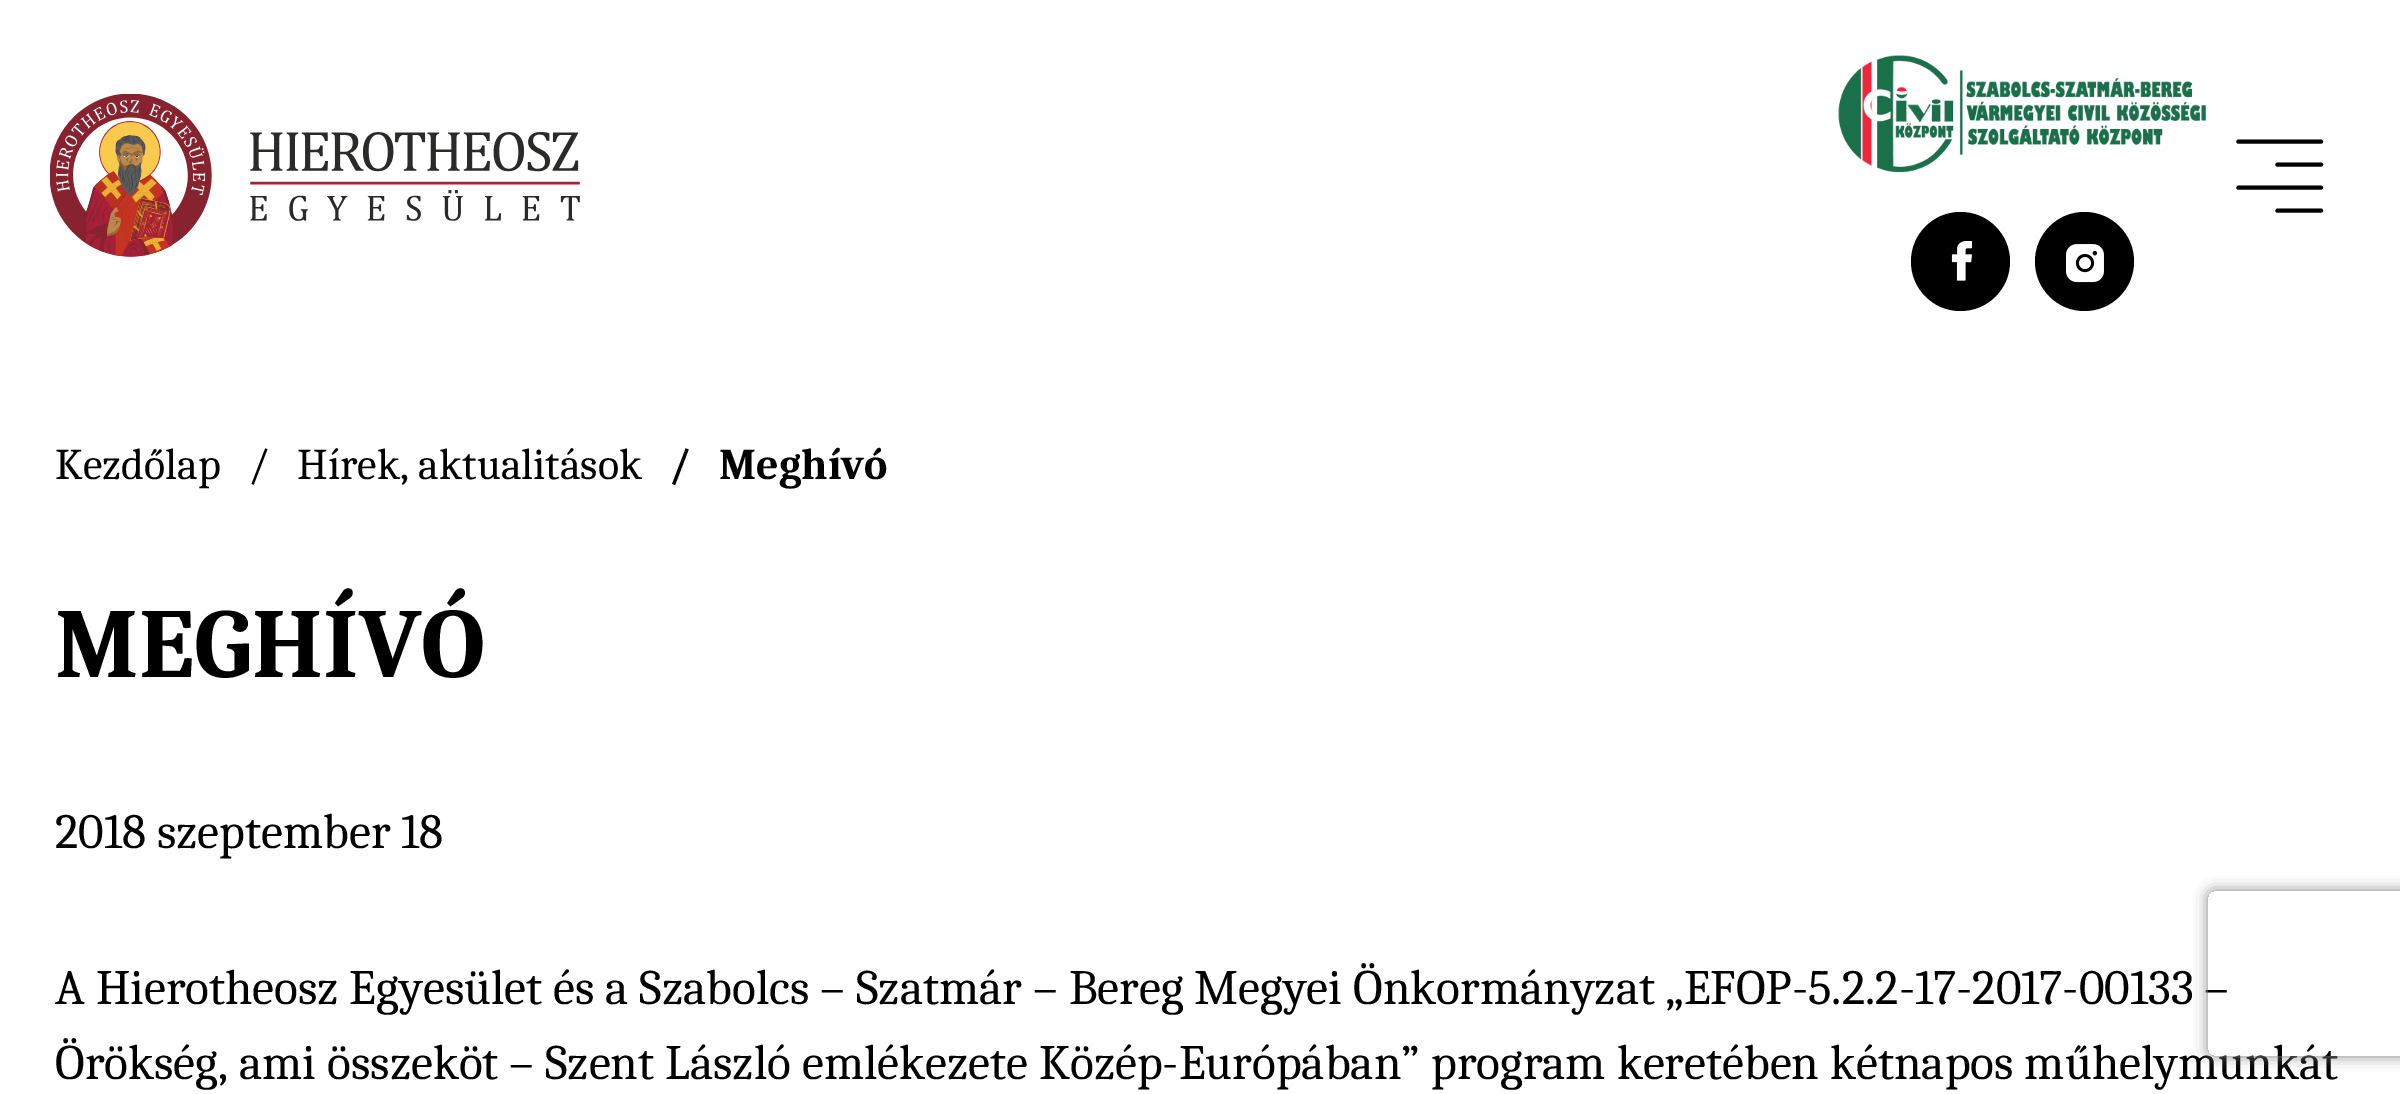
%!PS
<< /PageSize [2400 1094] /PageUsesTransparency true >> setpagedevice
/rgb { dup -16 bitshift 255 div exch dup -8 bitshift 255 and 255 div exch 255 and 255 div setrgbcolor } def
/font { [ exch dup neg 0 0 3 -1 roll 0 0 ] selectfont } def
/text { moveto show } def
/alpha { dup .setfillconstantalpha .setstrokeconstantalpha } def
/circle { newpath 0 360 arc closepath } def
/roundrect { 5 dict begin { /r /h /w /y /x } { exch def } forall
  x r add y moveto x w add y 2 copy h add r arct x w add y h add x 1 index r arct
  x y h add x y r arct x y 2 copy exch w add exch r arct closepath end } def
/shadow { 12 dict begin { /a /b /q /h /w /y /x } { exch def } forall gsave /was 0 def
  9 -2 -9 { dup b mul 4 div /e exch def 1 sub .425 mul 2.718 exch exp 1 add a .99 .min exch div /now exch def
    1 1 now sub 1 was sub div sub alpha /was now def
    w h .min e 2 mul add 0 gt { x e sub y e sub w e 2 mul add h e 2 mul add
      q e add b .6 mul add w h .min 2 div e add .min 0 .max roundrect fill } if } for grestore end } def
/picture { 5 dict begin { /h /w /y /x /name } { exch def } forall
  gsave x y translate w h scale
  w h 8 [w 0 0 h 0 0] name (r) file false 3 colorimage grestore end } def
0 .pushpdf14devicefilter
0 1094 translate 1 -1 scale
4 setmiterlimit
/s1 { /Caladea-Regular 44 font 16#000000 rgb } def
/s2 { /Caladea-Bold 44 font 16#000000 rgb } def
/s3 { /Caladea-Bold 99 font 16#000000 rgb } def
/s4 { /Caladea-Regular 49.5 font 16#000000 rgb } def
16#FFFFFF rgb
0 0 2400 1094 rectfill
(pic1.raw) 50 94 530 163 picture
(pic2.raw) 1838 55 368 118 picture
16#000000 rgb
1960.5 261.5 49.5 circle fill
(pic3.raw) 1951 241 21 40 picture
2084.5 261.5 49.5 circle fill
(pic4.raw) 2066 244 38 39 picture
4.1 setlinewidth
1 setlinecap
1 setlinejoin
2238.5 141.5 moveto 2321 141.5 lineto stroke
2277.5 164.5 moveto 2321 164.5 lineto stroke
2238.5 187.5 moveto 2321 187.5 lineto stroke
2277.5 210.5 moveto 2321 210.5 lineto stroke
s1
(Kezdőlap) 55 479 text
(/) 248 479 text
(Hírek, aktualitások) 297 479 text
s2
(/) 669 479 text
(Meghívó) 719 479 text
s3
(MEGHÍVÓ) 55 677 text
s4
(2018 szeptember 18) 55 848 text
(A Hierotheosz Egyesület és a Szabolcs – Szatmár – Bereg Megyei Önkormányzat „EFOP-5.2.2-17-2017-00133 –) 55 1004 text
(Örökség, ami összeköt – Szent László emlékezete Közép-Európában” program keretében kétnapos műhelymunkát) 55 1079 text
gsave
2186 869 moveto 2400 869 lineto 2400 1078 lineto 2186 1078 lineto closepath 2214 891 moveto 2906 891 lineto 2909.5 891 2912 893.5 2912 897 curveto 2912 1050 lineto 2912 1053.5 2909.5 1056 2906 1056 curveto 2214 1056 lineto 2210.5 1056 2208 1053.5 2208 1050 curveto 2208 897 lineto 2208 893.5 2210.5 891 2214 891 curveto closepath eoclip newpath
16#808080 rgb
2208 891 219 165 6 7 1 shadow
grestore
.poppdf14devicefilter showpage
